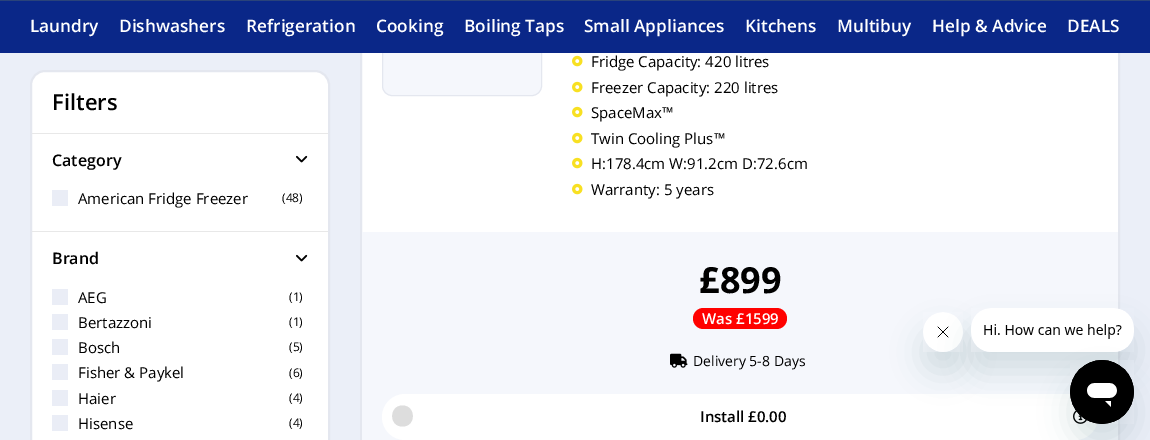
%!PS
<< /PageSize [1150 440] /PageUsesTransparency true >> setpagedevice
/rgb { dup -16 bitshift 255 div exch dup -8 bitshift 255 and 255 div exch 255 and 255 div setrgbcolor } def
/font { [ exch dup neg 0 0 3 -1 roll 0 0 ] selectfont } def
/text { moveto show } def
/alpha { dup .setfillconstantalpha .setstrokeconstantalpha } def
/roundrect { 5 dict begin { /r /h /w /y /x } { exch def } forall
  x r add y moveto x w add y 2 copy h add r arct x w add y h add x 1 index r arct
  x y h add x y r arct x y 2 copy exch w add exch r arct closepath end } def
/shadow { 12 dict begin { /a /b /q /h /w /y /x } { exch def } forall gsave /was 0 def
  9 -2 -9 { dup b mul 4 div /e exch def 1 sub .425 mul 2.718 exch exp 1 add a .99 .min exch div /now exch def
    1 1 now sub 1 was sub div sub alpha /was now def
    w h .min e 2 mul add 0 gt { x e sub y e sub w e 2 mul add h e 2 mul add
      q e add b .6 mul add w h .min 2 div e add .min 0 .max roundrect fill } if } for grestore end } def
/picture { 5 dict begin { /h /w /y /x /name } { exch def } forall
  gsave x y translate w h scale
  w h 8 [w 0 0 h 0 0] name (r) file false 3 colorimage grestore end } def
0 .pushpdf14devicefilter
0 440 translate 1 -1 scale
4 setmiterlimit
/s1 { /OpenSans-SemiBold 17.25 font 16#FFFFFF rgb } def
/s2 { /OpenSans-SemiBold 22 font 16#000000 rgb } def
/s3 { /OpenSans-SemiBold 16 font 16#000000 rgb } def
/s4 { /OpenSans-Regular 15 font 16#000000 rgb } def
/s5 { /OpenSans-Regular 12 font 16#000000 rgb } def
/s6 { /OpenSans-Bold 36 font 16#000000 rgb } def
/s7 { /OpenSans-SemiBold 15 font 16#FFFFFF rgb } def
/s8 { /OpenSans-Regular 14 font 16#000000 rgb } def
/s9 { /OpenSans-SemiBold 15 font 16#000000 rgb } def
16#FFFFFF rgb
0 0 1150 440 rectfill
gsave 0 53 moveto 1150 53 lineto 1150 440 lineto 0 440 lineto closepath clip newpath
<< /ShadingType 2 /ColorSpace /DeviceRGB /Coords [575 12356 575 -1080] /Extend [true true] /Function << /FunctionType 3 /Domain [0 1] /Functions [<< /FunctionType 2 /Domain [0 1] /C0 [0.961 0.973 0.988] /C1 [0.961 0.973 0.988] /N 1 >> << /FunctionType 2 /Domain [0 1] /C0 [0.961 0.973 0.988] /C1 [0.918 0.933 0.969] /N 1 >>] /Bounds [0.2] /Encode [0 1 0 1] >> >> shfill grestore
362 53 756 179 rectfill
16#E4E7EF rgb
2 setlinewidth
361 -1 758 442 rectstroke
16#F5F7FC rgb
382.5 -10.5 159 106 9.5 roundrect gsave fill grestore
16#E4E7EF rgb
1 setlinewidth
stroke
16#0A2788 rgb
0 1 1150 52 rectfill
16#2A437A rgb
0 0 1150 1 rectfill
s1
(Laundry) 30 32 text
(Dishwashers) 119 32 text
(Refrigeration) 246 32 text
(Cooking) 376 32 text
(Boiling Taps) 464 32 text
(Small Appliances) 584 32 text
(Kitchens) 745 32 text
(Multibuy) 837 32 text
(Help & Advice) 932 32 text
(DEALS) 1067 32 text
31 71 298 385 14 roundrect gsave fill grestore
16#E4E7EF rgb
2 setlinewidth
stroke
s2
(Filters) 52 110 text
16#E8E8E8 rgb
32 133 296 1 rectfill
s3
(Category) 52 166 text
(pic1.raw) 296 155 12 8 picture
16#EAEDF6 rgb
52 190 16 16 rectfill
s4
(American Fridge Freezer) 78 204 text
s5
(\(48\)) 282 202 text
16#E8E8E8 rgb
32 231 296 1 rectfill
s3
(Brand) 52 264 text
(pic1.raw) 296 254 12 8 picture
16#EAEDF6 rgb
52 289 16 16 rectfill
s4
(AEG) 78 303 text
s5
(\(1\)) 289 301 text
16#EAEDF6 rgb
52 314 16 16 rectfill
s4
(Bertazzoni) 78 328 text
s5
(\(1\)) 289 326 text
16#EAEDF6 rgb
52 339 16 16 rectfill
s4
(Bosch) 78 353 text
s5
(\(5\)) 289 351 text
16#EAEDF6 rgb
52 364 16 16 rectfill
s4
(Fisher & Paykel) 78 378 text
s5
(\(6\)) 289 377 text
16#EAEDF6 rgb
52 390 16 16 rectfill
s4
(Haier) 78 404 text
s5
(\(4\)) 289 402 text
16#EAEDF6 rgb
52 415 16 16 rectfill
s4
(Hisense) 78 429 text
s5
(\(4\)) 289 427 text
(pic2.raw) 572 55 11 12 picture
s4
(Fridge Capacity: 420 litres) 591 67 text
(pic2.raw) 572 81 11 12 picture
(Freezer Capacity: 220 litres) 591 93 text
(pic2.raw) 572 106 11 12 picture
(SpaceMax™) 591 118 text
(pic2.raw) 572 132 11 12 picture
(Twin Cooling Plus™) 591 144 text
(pic2.raw) 572 157 11 12 picture
(H:178.4cm W:91.2cm D:72.6cm) 591 169 text
(pic2.raw) 572 183 11 12 picture
(Warranty: 5 years) 591 195 text
16#F5F7FC rgb
362 232 756 208 rectfill
s6
(£899) 699 293 text
16#FF0100 rgb
693 308 94 21 10.5 roundrect fill
s7
(Was £1599) 702 324 text
(pic3.raw) 670 353 18 15 picture
s8
(Delivery 5-8 Days) 693 366 text
16#FFFFFF rgb
382 394 716 46 23 roundrect fill
16#DDDDDD rgb
402.5 426.5 moveto 416.5 426.5 416 405.5 402.5 405.5 curveto 389 405.5 388.5 426.5 402.5 426.5 curveto closepath fill
s9
(Install £0.00) 700 422 text
(pic4.raw) 1073 410 14 14 picture
16#17494D rgb
923 332 40 40 20 15 0.15 shadow
(pic6.raw) 923 312 40 40 picture
971 328 163 44 20 15 0.15 shadow
(pic5.raw) 971 308 163 44 picture
1070 380 64 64 32 15 0.15 shadow
(pic7.raw) 1070 360 64 64 picture
.poppdf14devicefilter showpage
